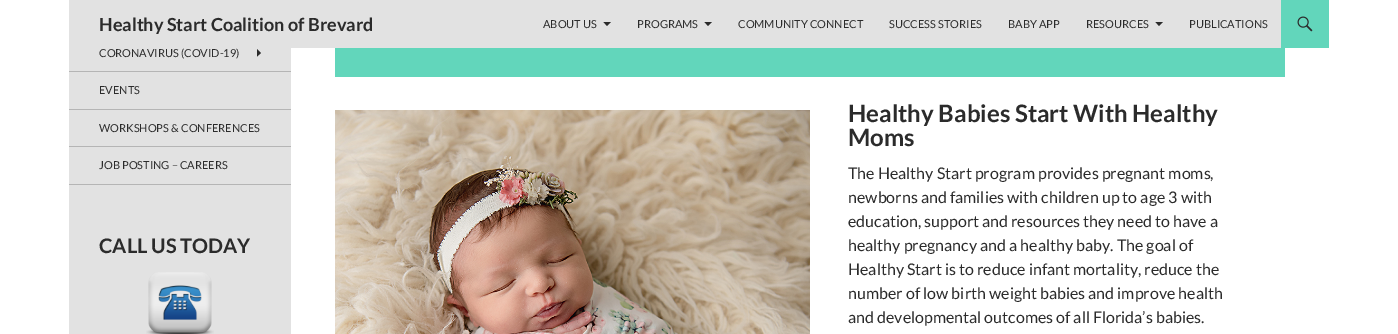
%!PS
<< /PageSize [1398 334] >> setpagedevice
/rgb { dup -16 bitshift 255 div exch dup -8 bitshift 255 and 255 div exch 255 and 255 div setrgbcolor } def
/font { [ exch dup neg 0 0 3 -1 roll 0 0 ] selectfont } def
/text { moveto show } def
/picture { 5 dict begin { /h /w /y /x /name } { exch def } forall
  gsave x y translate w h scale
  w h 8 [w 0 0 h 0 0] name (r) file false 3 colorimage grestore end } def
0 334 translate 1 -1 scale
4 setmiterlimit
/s1 { /Lato-Bold 18 font 16#2B2B2B rgb } def
/s2 { /Lato-Regular 11 font 16#2B2B2B rgb } def
/s3 { /Lato-Bold 20 font 16#2B2B2B rgb } def
/s4 { /Lato-Bold 24 font 16#2B2B2B rgb } def
/s5 { /Lato-Regular 16 font 16#2B2B2B rgb } def
16#FFFFFF rgb
0 0 1398 334 rectfill
16#E2E2E2 rgb
69 0 1212 48 rectfill
s1
(Healthy Start Coalition of Brevard) 99 31 text
s2
(ABOUT US) 543 28 text
603.5 22 moveto 607 26 lineto 611 22 lineto closepath fill
(PROGRAMS) 637 28 text
704.5 22 moveto 708 26 lineto 712 22 lineto closepath fill
(COMMUNITY CONNECT) 738 28 text
(SUCCESS STORIES) 889 28 text
(BABY APP) 1008 28 text
(RESOURCES) 1086 28 text
1155.5 22 moveto 1159 26 lineto 1163 22 lineto closepath fill
(PUBLICATIONS) 1189 28 text
16#62D6BB rgb
1281 0 48 48 rectfill
(pic1.raw) 1297 16 16 16 picture
16#E2E2E2 rgb
69 48 222 286 rectfill
16#B5B5B5 rgb
69 184 222 1 rectfill
s2
(CORONAVIRUS \(COVID-19\)) 99 57 text
257 56.5 moveto 261 53 lineto 257 49 lineto closepath fill
16#B5B5B5 rgb
69 71 222 1 rectfill
s2
(EVENTS) 99 94 text
16#B5B5B5 rgb
69 109 222 1 rectfill
s2
(WORKSHOPS & CONFERENCES) 99 132 text
16#B5B5B5 rgb
69 146 222 1 rectfill
s2
(JOB POSTING – CAREERS) 99 169 text
s3
(CALL US TODAY) 99 253 text
(pic2.raw) 146 272 68 62 picture
16#62D6BB rgb
335 48 950 29 rectfill
(pic3.raw) 335 110 475 224 picture
s4
(Healthy Babies Start With Healthy) 848 122 text
(Moms) 848 146 text
s5
(The Healthy Start program provides pregnant moms,) 848 179 text
(newborns and families with children up to age 3 with) 848 203 text
(education, support and resources they need to have a) 848 227 text
(healthy pregnancy and a healthy baby. The goal of) 848 251 text
(Healthy Start is to reduce infant mortality, reduce the) 848 275 text
(number of low birth weight babies and improve health) 848 299 text
(and developmental outcomes of all Florida’s babies.) 848 323 text
showpage
